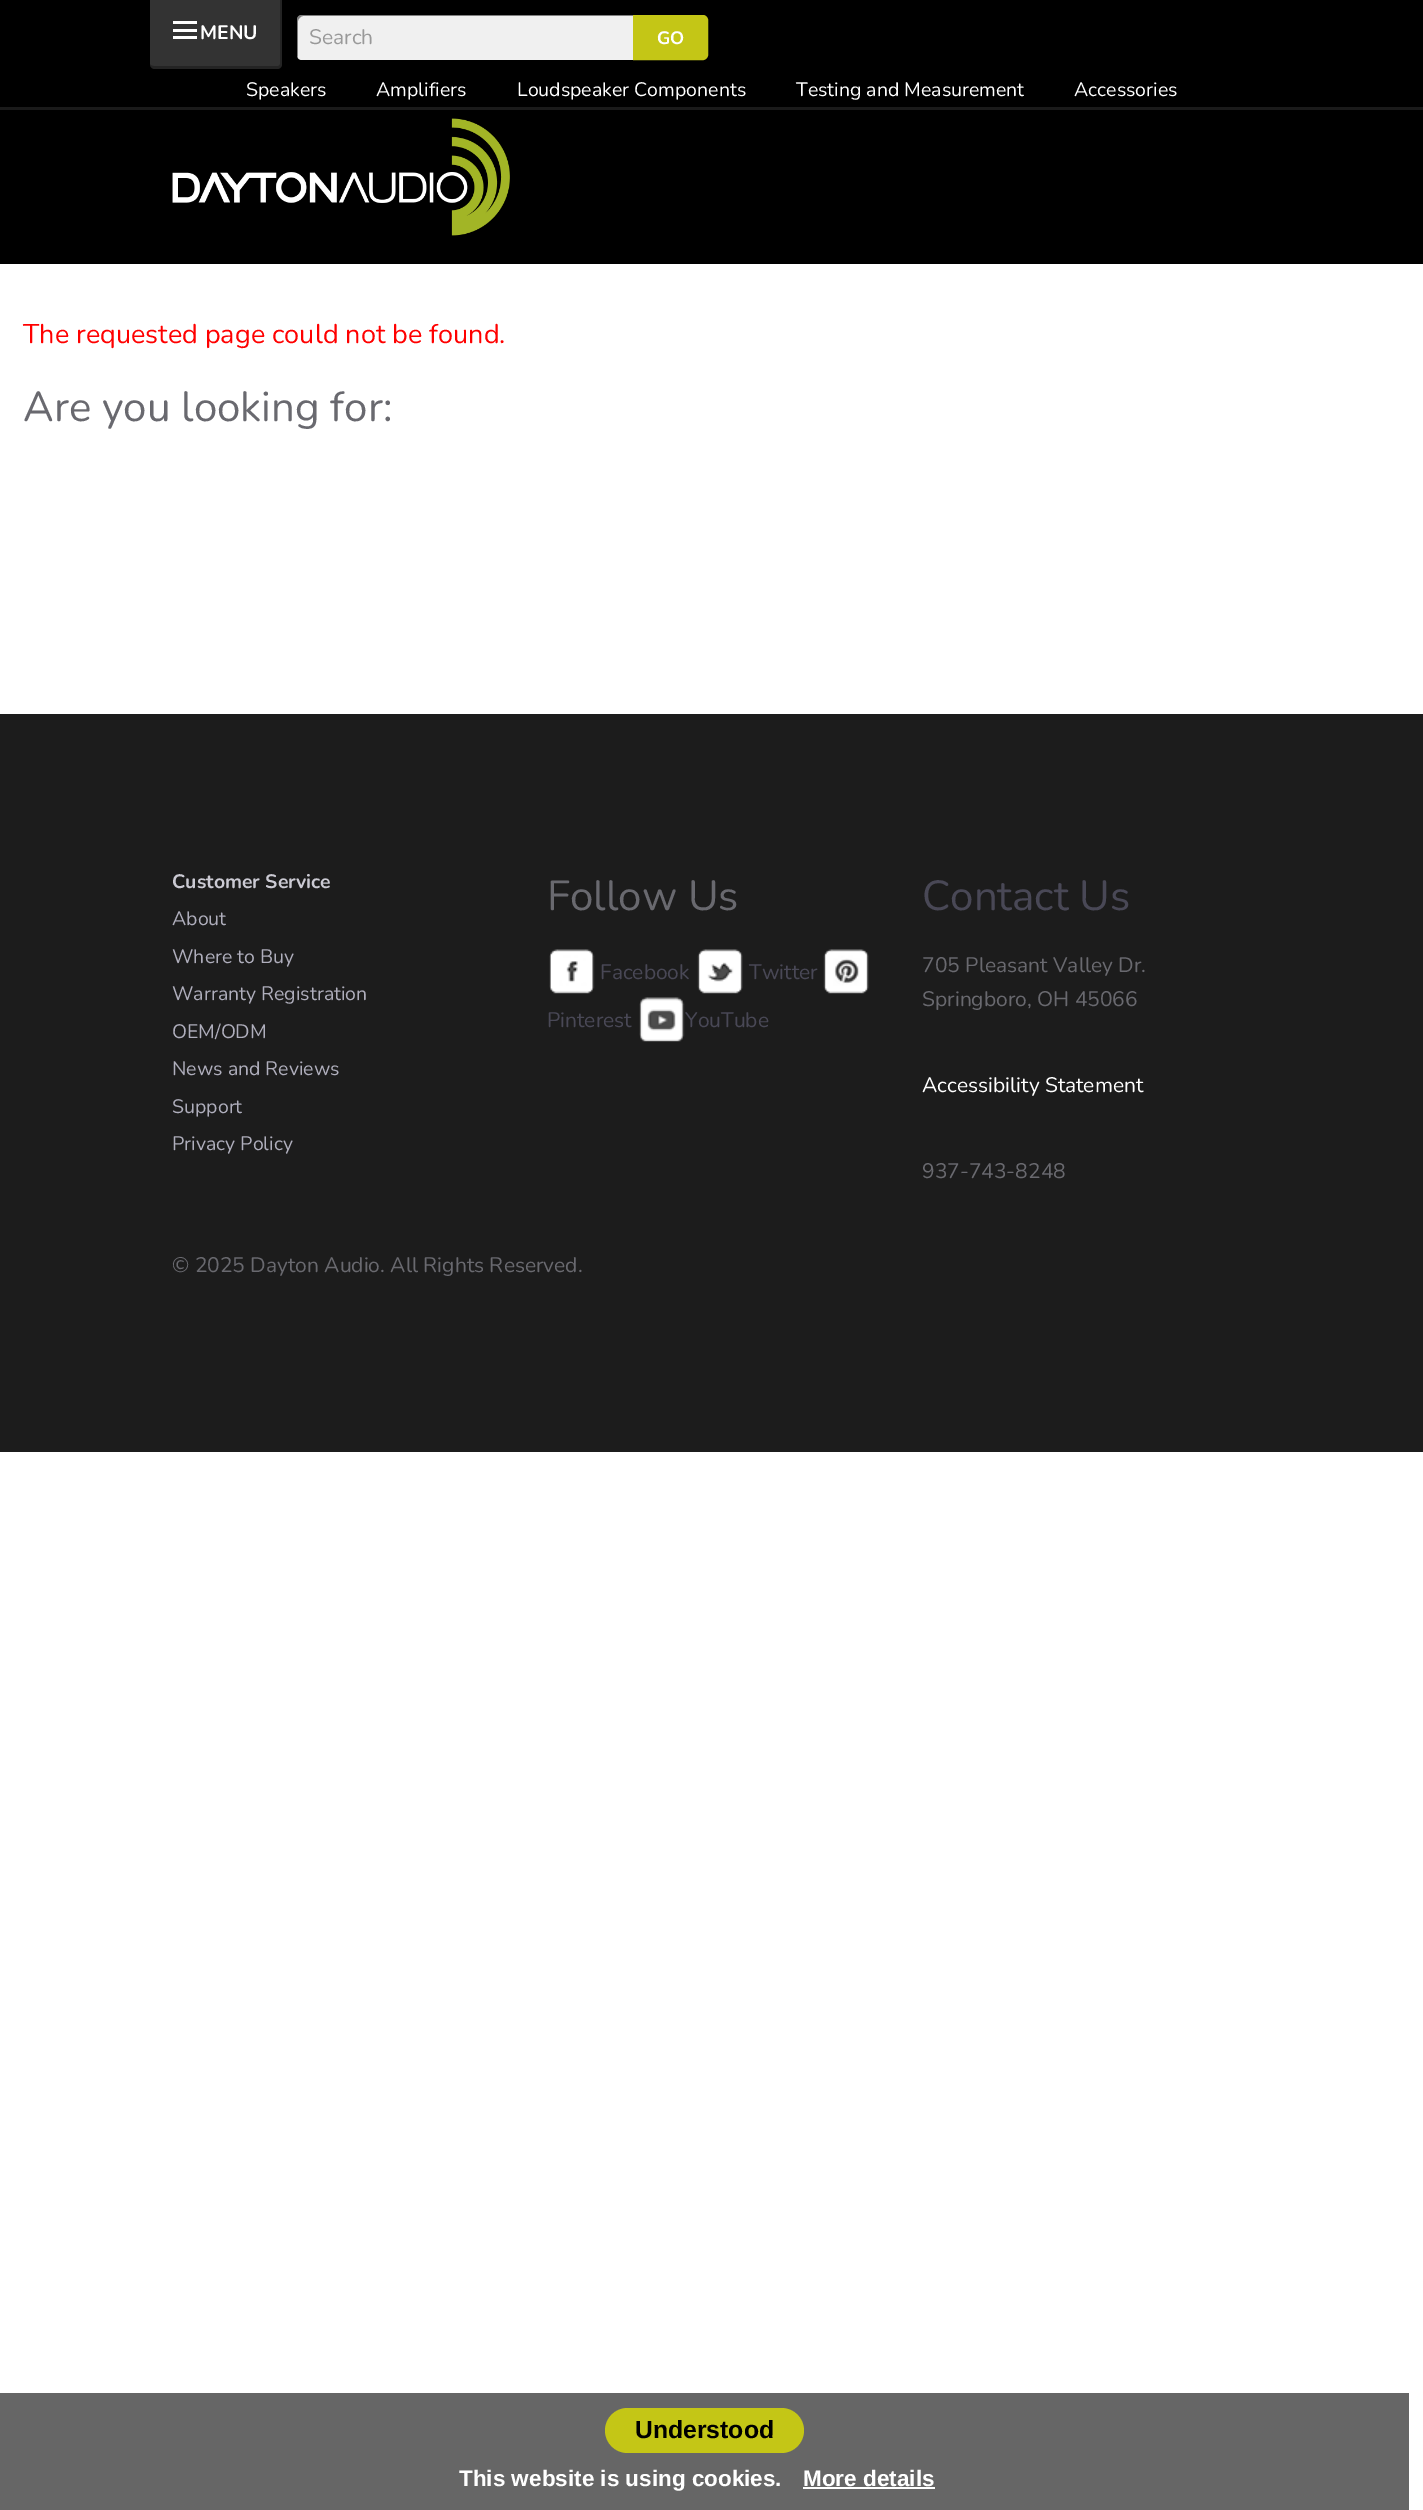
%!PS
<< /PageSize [1423 2510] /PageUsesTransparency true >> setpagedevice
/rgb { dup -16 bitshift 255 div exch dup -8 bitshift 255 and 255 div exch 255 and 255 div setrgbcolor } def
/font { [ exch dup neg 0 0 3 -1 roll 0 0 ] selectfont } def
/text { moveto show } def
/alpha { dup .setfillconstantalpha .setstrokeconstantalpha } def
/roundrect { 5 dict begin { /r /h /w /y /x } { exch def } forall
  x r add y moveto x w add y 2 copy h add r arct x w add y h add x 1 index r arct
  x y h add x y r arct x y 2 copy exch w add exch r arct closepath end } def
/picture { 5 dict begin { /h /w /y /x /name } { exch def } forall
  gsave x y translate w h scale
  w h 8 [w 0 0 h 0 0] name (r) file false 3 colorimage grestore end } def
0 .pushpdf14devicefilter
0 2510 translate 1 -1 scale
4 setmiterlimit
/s1 { /Nunito-Bold 19.5 font 16#FFFFFF rgb } def
/s2 { /Nunito-Regular 21 font 16#999999 rgb } def
/s3 { /Nunito-Bold 18 font 16#FFFFFF rgb } def
/s4 { /Nunito-Regular 19.5 font 16#FFFFFF rgb } def
/s5 { /Nunito-Regular 27 font 16#FF0000 rgb } def
/s6 { /Nunito-Regular 42 font 16#69696F rgb } def
/s7 { /Nunito-Bold 19.5 font 16#CBCAD3 rgb } def
/s8 { /Nunito-Regular 19.5 font 16#AFAEBC rgb } def
/s9 { /Nunito-Regular 21 font 16#494856 rgb } def
/s10 { /Nunito-Regular 42 font 16#494856 rgb } def
/s11 { /Nunito-Regular 21 font 16#69696F rgb } def
/s12 { /Nunito-Regular 21 font 16#FFFFFF rgb } def
/s13 { /LiberationSans-Bold 24.75 font 16#000000 rgb } def
/s14 { /LiberationSans-Bold 22.5 font 16#FFFFFF rgb } def
16#FFFFFF rgb
0 0 1423 2510 rectfill
16#000000 rgb
0 0 1423 107 rectfill
16#1A1A1A rgb
0 107 1423 3 rectfill
16#333333 rgb
150 0 moveto 282 0 lineto 282 64 lineto 282 67 280 69 277 69 curveto 155 69 lineto 152 69 150 67 150 64 curveto closepath fill
0.3 alpha
16#000000 rgb
150 0 moveto 282 0 lineto 282 64 lineto 282 67 280 69 278 69 curveto 154 69 lineto 152 69 150 67 150 64 curveto closepath 150 0 moveto 280 0 lineto 280 64 lineto 280 65 279 66 278 66 curveto 154 66 lineto 152 66 150 65 150 64 curveto closepath eofill
1 alpha
16#FFFFFF rgb
173 21 24 3 rectfill
173 29 24 3 rectfill
173 36 24 3 rectfill
s1
(MENU) 200 39 text
16#F0F0F0 rgb
302 15 moveto 633 15 lineto 633 60 lineto 302 60 lineto 299 60 297 58 297 55 curveto 297 20 lineto 297 17 299 15 302 15 curveto closepath fill
0.47 alpha
16#000000 rgb
303 16 moveto 633 16 lineto 633 15 lineto 302 15 lineto 299 15 297 17 297 20 curveto 297 55 lineto 297 56 298 58 298 59 curveto 298 57 lineto 298 21 lineto 298 19 301 16 303 16 curveto closepath fill
1 alpha
s2
(Search) 309 44 text
16#C4C616 rgb
634 16 moveto 703 16 lineto 705 16 707 18 707 20 curveto 707 55 lineto 707 57 705 59 703 59 curveto 634 59 lineto closepath gsave fill grestore
2 setlinewidth
stroke
s3
(GO) 657 44 text
s4
(Speakers) 246 96 text
(Amplifiers) 376 96 text
(Loudspeaker Components) 517 96 text
(Testing and Measurement) 796 96 text
(Accessories) 1074 96 text
16#000000 rgb
0 110 1423 154 rectfill
(pic1.raw) 172 118 338 118 picture
s5
(The requested page could not be found.) 23 343 text
s6
(Are you looking for:) 23 421 text
16#1C1C1C rgb
0 714 1423 738 rectfill
s7
(Customer Service) 172 888 text
s8
(About) 172 925 text
(Where to Buy) 172 963 text
(Warranty Registration) 172 1000 text
(OEM/ODM) 172 1038 text
(News and Reviews) 172 1075 text
(Support) 172 1113 text
(Privacy Policy) 172 1150 text
s6
(Follow Us) 547 910 text
(pic2.raw) 549 949 46 45 picture
s9
(Facebook) 600 979 text
(pic3.raw) 697 949 46 45 picture
(Twitter) 749 979 text
(pic4.raw) 823 949 46 45 picture
(Pinterest) 547 1027 text
(pic5.raw) 639 997 46 45 picture
(YouTube) 685 1027 text
s10
(Contact Us) 922 910 text
s11
(705 Pleasant Valley Dr.) 922 972 text
(Springboro, OH 45066) 922 1006 text
s12
(Accessibility Statement) 922 1092 text
s11
(937-743-8248) 922 1178 text
(© 2025 Dayton Audio. All Rights Reserved.) 172 1272 text
16#666666 rgb
0 2393 1409 117 rectfill
16#C4C616 rgb
605 2408 199 45 22.5 roundrect fill
s13
(Understood) 635 2438 text
s14
(This website is using cookies.) 459 2486 text
(More details) 803 2486 text
803 2487 132 2 rectfill
.poppdf14devicefilter showpage
